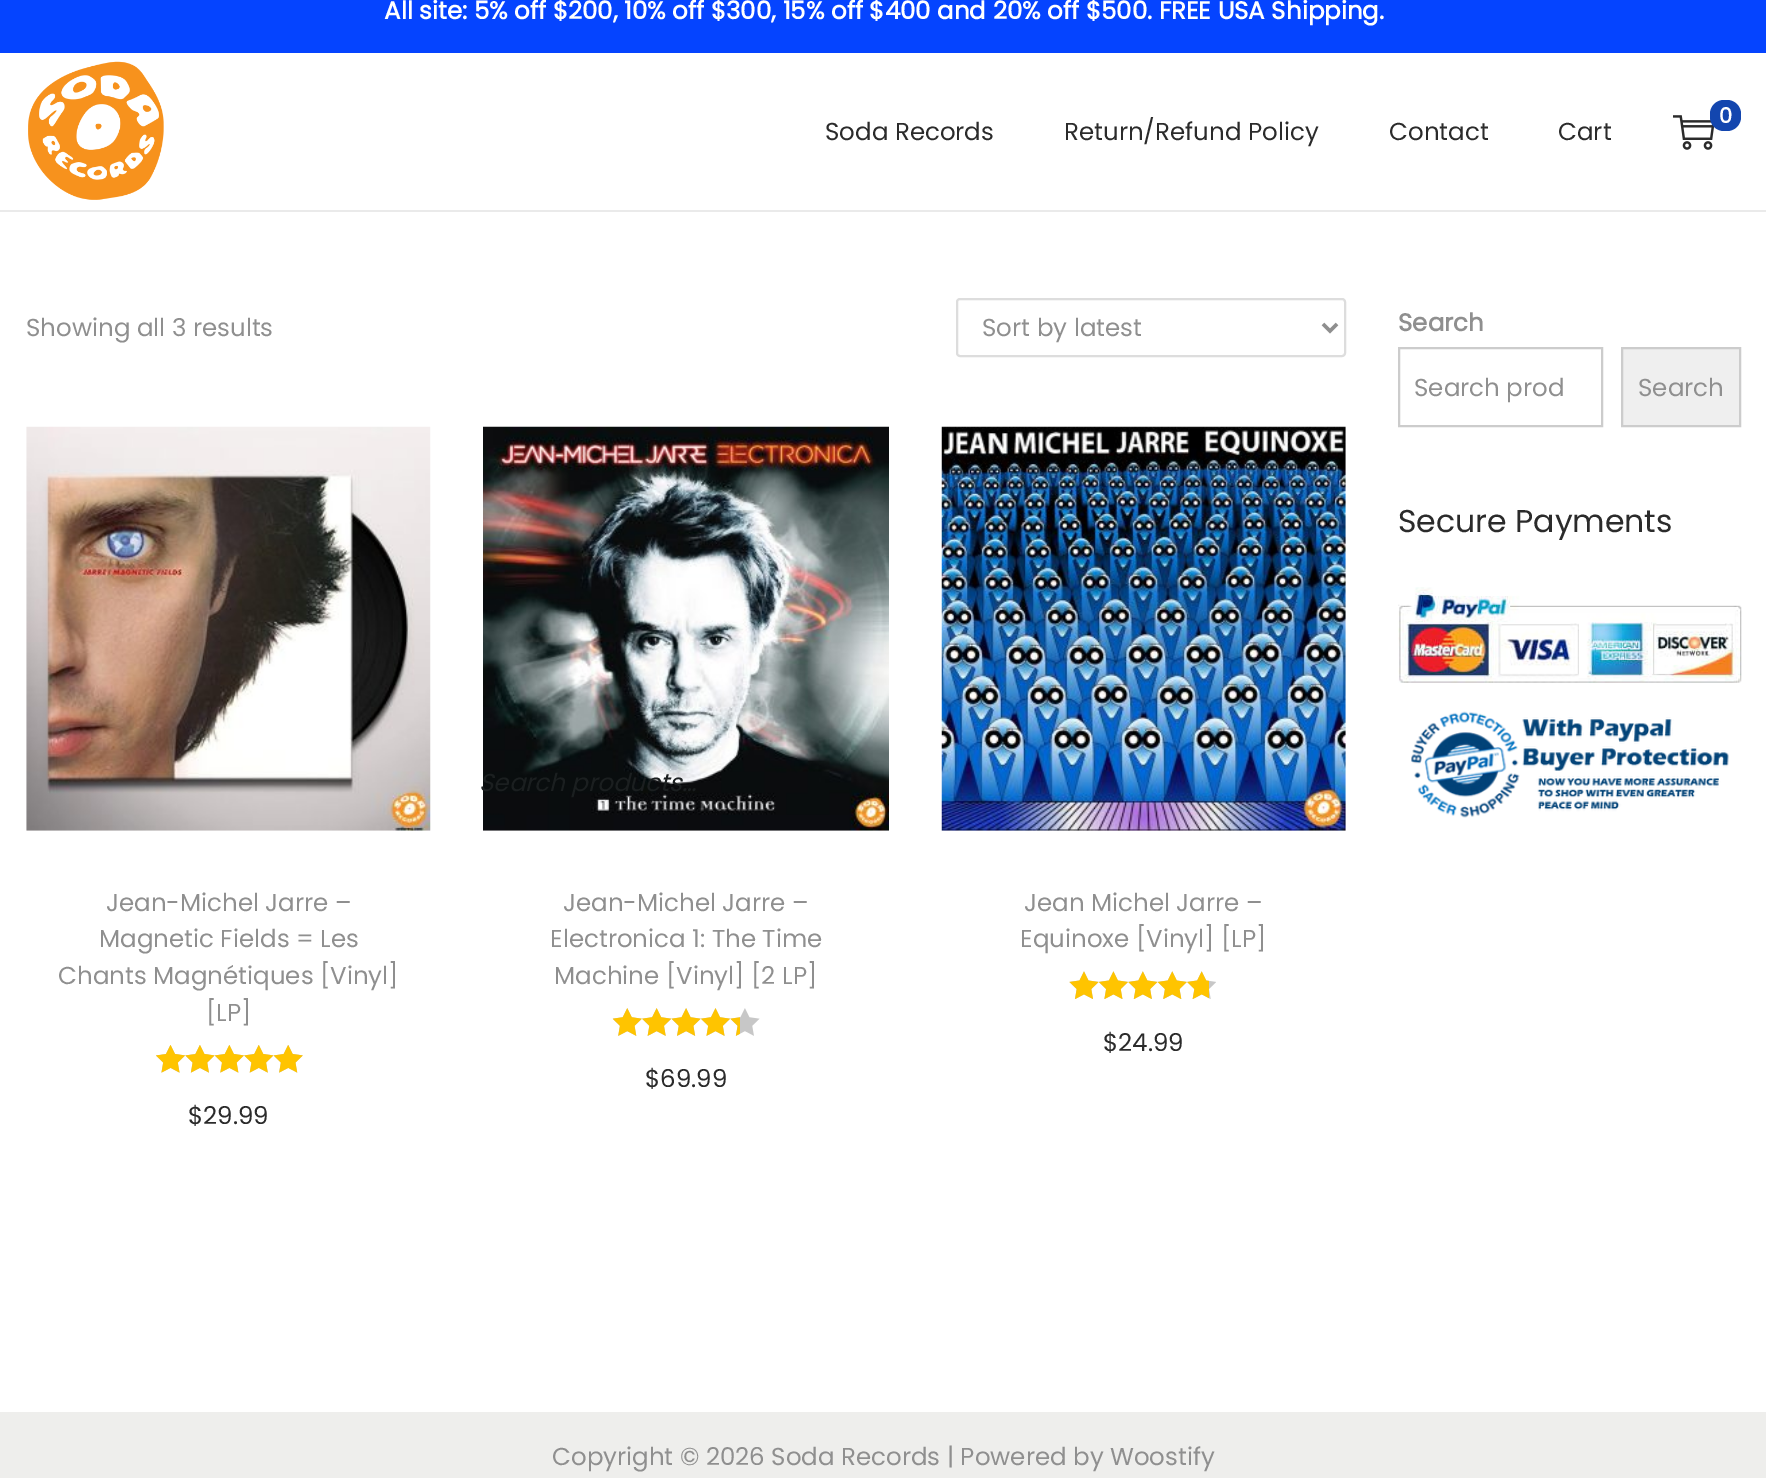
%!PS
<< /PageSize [1766 1478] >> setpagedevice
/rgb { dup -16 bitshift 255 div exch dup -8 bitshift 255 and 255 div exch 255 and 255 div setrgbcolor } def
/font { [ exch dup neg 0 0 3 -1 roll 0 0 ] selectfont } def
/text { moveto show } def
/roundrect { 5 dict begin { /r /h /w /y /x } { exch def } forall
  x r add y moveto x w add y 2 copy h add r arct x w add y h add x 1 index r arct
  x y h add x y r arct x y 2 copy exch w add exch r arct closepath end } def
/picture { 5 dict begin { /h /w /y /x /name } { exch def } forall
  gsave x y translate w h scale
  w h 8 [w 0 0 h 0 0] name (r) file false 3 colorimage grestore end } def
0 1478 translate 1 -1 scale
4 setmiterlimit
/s1 { /Poppins-Bold 24.5 font 16#FFFFFF rgb } def
/s2 { /Poppins-Regular 24.5 font 16#2B2B2B rgb } def
/s3 { /Poppins-Bold 21 font 16#FFFFFF rgb } def
/s4 { /Poppins-Regular 24.5 font 16#8F8F8F rgb } def
/s5 { /Poppins-Bold 24.5 font 16#8F8F8F rgb } def
/s6 { /Poppins-Regular 31.5 font 16#2B2B2B rgb } def
/s7 { /Poppins-Italic 24.5 font 16#1B1F20 rgb } def
16#FFFFFF rgb
0 0 1766 1478 rectfill
16#0544FF rgb
0 0 1766 53 rectfill
s1
(All site: 5% off $200, 10% off $300, 15% off $400 and 20% off $500. FREE USA Shipping.) 384 19 text
16#EAEAEA rgb
0 210 1766 2 rectfill
(pic1.raw) 28 61 136 139 picture
s2
(Soda Records) 825 140 text
(Return/Refund Policy) 1064 140 text
(Contact) 1389 140 text
(Cart) 1558 140 text
(pic2.raw) 1673 115 42 35 picture
16#1346AF rgb
1710 100 31 31 14 roundrect fill
s3
(0) 1719 123 text
s4
(Showing all 3 results) 26 336 text
16#DDDDDD rgb
2 setlinewidth
957 299 388 57 3 roundrect stroke
16#8F8F8F rgb
3.5 setlinewidth
1323 324 moveto 1330 331 lineto 1337 324 lineto stroke
(Sort by latest) 982 336 text
(pic3.raw) 26 426 405 405 picture
(Jean-Michel Jarre –) 106 911 text
(Magnetic Fields = Les) 99 947 text
(Chants Magnétiques [Vinyl]) 58 984 text
([LP]) 206 1021 text
(pic4.raw) 156 1045 147 28 picture
(pic5.raw) 156 1045 147 28 picture
s2
($29.99) 188 1124 text
(pic6.raw) 483 426 406 405 picture
s4
(Jean-Michel Jarre –) 563 911 text
(Electronica 1: The Time) 550 947 text
(Machine [Vinyl] [2 LP]) 554 984 text
(pic7.raw) 612 1008 148 28 picture
(pic8.raw) 613 1008 127 28 picture
s2
($69.99) 645 1087 text
(pic9.raw) 941 426 405 405 picture
s4
(Jean Michel Jarre –) 1024 911 text
(Equinoxe [Vinyl] [LP]) 1020 947 text
(pic10.raw) 1069 971 147 28 picture
(pic11.raw) 1069 971 140 28 picture
s2
($24.99) 1103 1051 text
s5
(Search) 1398 331 text
16#CCCCCC rgb
2 setlinewidth
1399 348 203 78 rectstroke
s4
(Search prod) 1414 396 text
16#EFEFEF rgb
1622 348 moveto 1740 348 lineto 1740 426 lineto 1622 426 lineto closepath gsave fill grestore
16#CCCCCC rgb
stroke
s4
(Search) 1638 396 text
s6
(Secure Payments) 1398 532 text
(pic12.raw) 1398 587 344 96 picture
(pic13.raw) 1411 711 318 107 picture
16#EEEEEC rgb
0 1412 1766 66 rectfill
s4
(Copyright © 2026 Soda Records | Powered by Woostify) 552 1465 text
s7
(Search products…) 479 791 text
showpage
